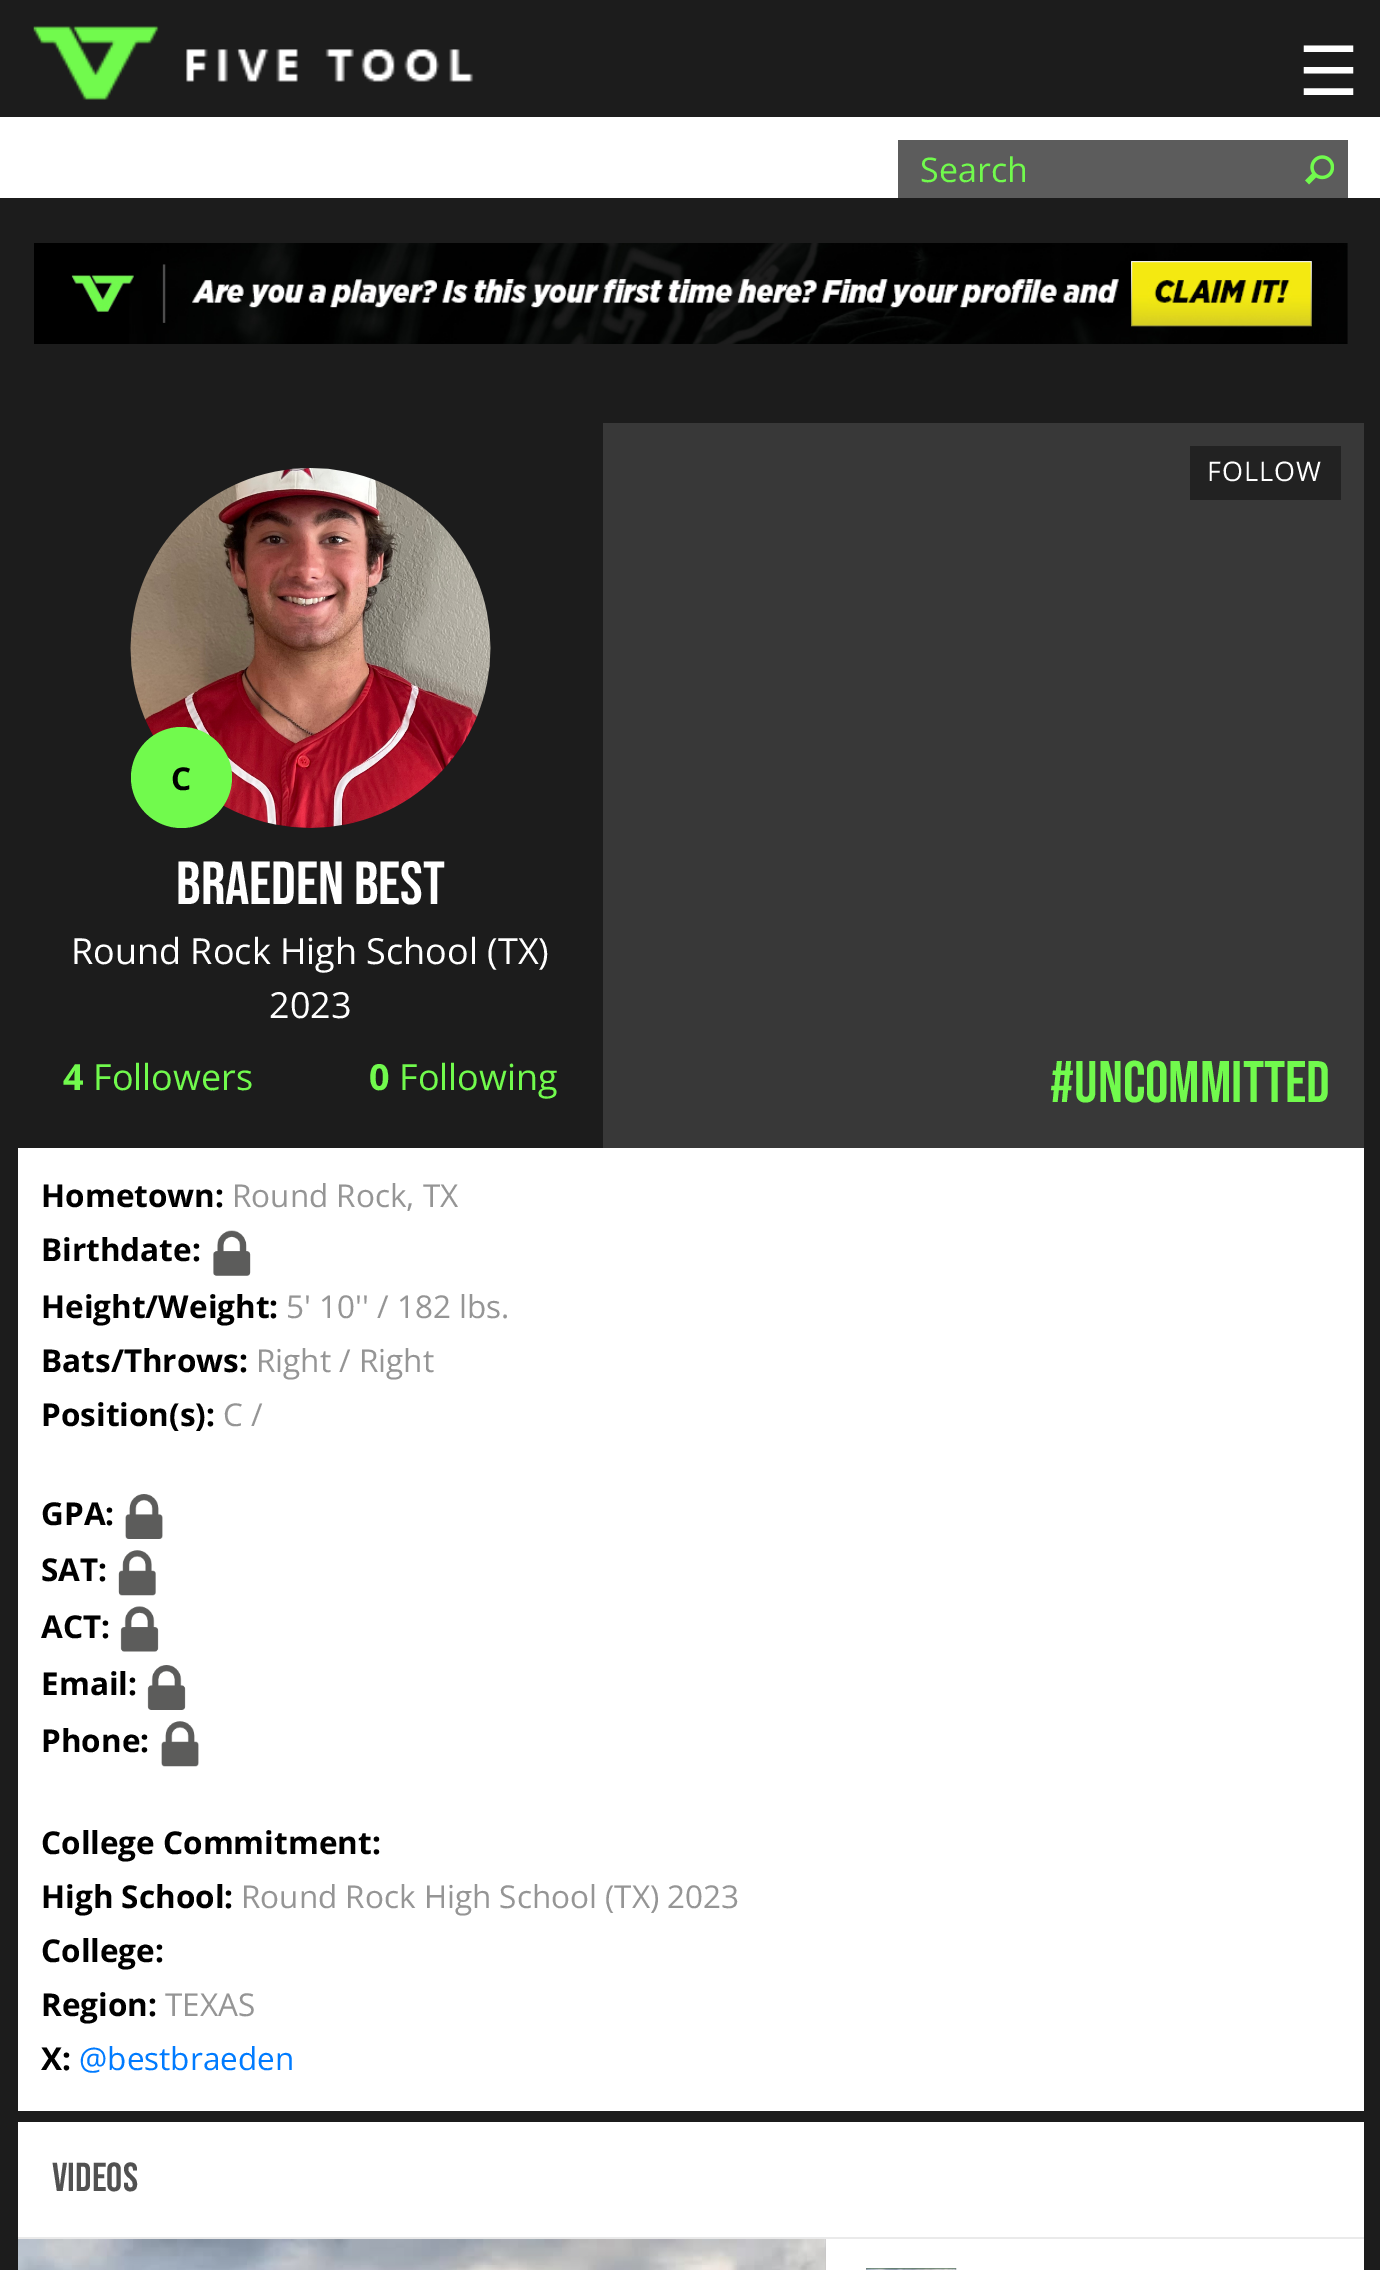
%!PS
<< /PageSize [1380 2270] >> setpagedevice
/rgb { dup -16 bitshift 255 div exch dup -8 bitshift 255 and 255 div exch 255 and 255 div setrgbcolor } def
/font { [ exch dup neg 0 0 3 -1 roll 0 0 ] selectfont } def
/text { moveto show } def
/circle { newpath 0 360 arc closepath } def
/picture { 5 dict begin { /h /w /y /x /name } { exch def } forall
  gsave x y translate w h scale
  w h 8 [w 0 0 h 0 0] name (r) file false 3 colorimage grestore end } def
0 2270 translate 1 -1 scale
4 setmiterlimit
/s1 { /DejaVuSans-Regular 68 font 16#FFFFFF rgb } def
/s2 { /OpenSans-Regular 34 font 16#71FA4D rgb } def
/s3 { /OpenSans-Bold 31.5 font 16#000000 rgb } def
/s4 { /BebasNeue-Regular 60.75 font 16#FFFFFF rgb } def
/s5 { /OpenSans-Regular 36 font 16#FFFFFF rgb } def
/s6 { /OpenSans-Bold 36 font 16#71FA4D rgb } def
/s7 { /OpenSans-Regular 36 font 16#71FA4D rgb } def
/s8 { /BebasNeue-Regular 58.5 font 16#71FA4D rgb } def
/s9 { /OpenSans-Regular 31.5 font 16#959595 rgb } def
/s10 { /OpenSans-Regular 31.5 font 16#007BFF rgb } def
/s11 { /BebasNeue-Regular 40.5 font 16#515151 rgb } def
16#1C1C1C rgb
0 0 1380 2270 rectfill
(pic1.raw) 33 26 441 74 picture
16#FFFFFF rgb
0 117 1380 81 rectfill
s1
(☰) 1298 95 text
16#5C5C5C rgb
898 140 450 58 rectfill
s2
(Search) 920 182 text
(pic2.raw) 1305 155 29 30 picture
(pic3.raw) 34 243 1314 101 picture
16#FFFFFF rgb
18 1148 1346 963 rectfill
16#383838 rgb
603 423 761 725 rectfill
16#222222 rgb
1190 446 151 54 rectfill
/OpenSans-Regular 27 font
16#FFFFFF rgb
1207 481 moveto 1 0 (FOLLOW) ashow
(pic4.raw) 130 468 361 360 picture
16#71FA4D rgb
181.5 777.5 50.5 circle fill
s3
(C) 171 790 text
s4
(Braeden Best) 176 904 text
s5
(Round Rock High School \(TX\)) 71 964 text
(2023) 269 1018 text
s6
(4) 63 1090 text
s7
(Followers) 93 1090 text
s6
(0) 369 1090 text
s7
(Following) 399 1090 text
s8
(#uncommitted) 1050 1102 text
s3
(Hometown:) 41 1207 text
s9
(Round Rock, TX) 232 1207 text
s3
(Birthdate:) 41 1261 text
(pic5.raw) 213 1230 38 46 picture
(Height/Weight:) 41 1318 text
s9
(5' 10'' / 182 lbs.) 286 1318 text
s3
(Bats/Throws:) 41 1372 text
s9
(Right / Right) 256 1372 text
s3
(Position\(s\):) 41 1426 text
s9
(C /) 223 1426 text
s3
(GPA:) 41 1525 text
(pic6.raw) 125 1494 38 45 picture
(SAT:) 41 1581 text
(pic7.raw) 118 1550 38 46 picture
(ACT:) 41 1638 text
(pic8.raw) 120 1606 39 46 picture
(Email:) 41 1695 text
(pic9.raw) 147 1665 39 45 picture
(Phone:) 41 1752 text
(pic10.raw) 161 1721 38 46 picture
(College Commitment:) 41 1854 text
(High School:) 41 1908 text
s9
(Round Rock High School \(TX\) 2023) 241 1908 text
s3
(College:) 41 1962 text
(Region:) 41 2016 text
s9
(TEXAS) 165 2016 text
s3
(X:) 41 2070 text
s10
(@bestbraeden) 79 2070 text
16#FFFFFF rgb
18 2122 1346 148 rectfill
16#EAEAEA rgb
18 2237 1346 2 rectfill
s11
(VIDEOS) 52 2191 text
16#C5C3C3 rgb
825 2239 1 31 rectfill
(pic11.raw) 18 2239 808 31 picture
(pic12.raw) 866 2268 91 2 picture
showpage
